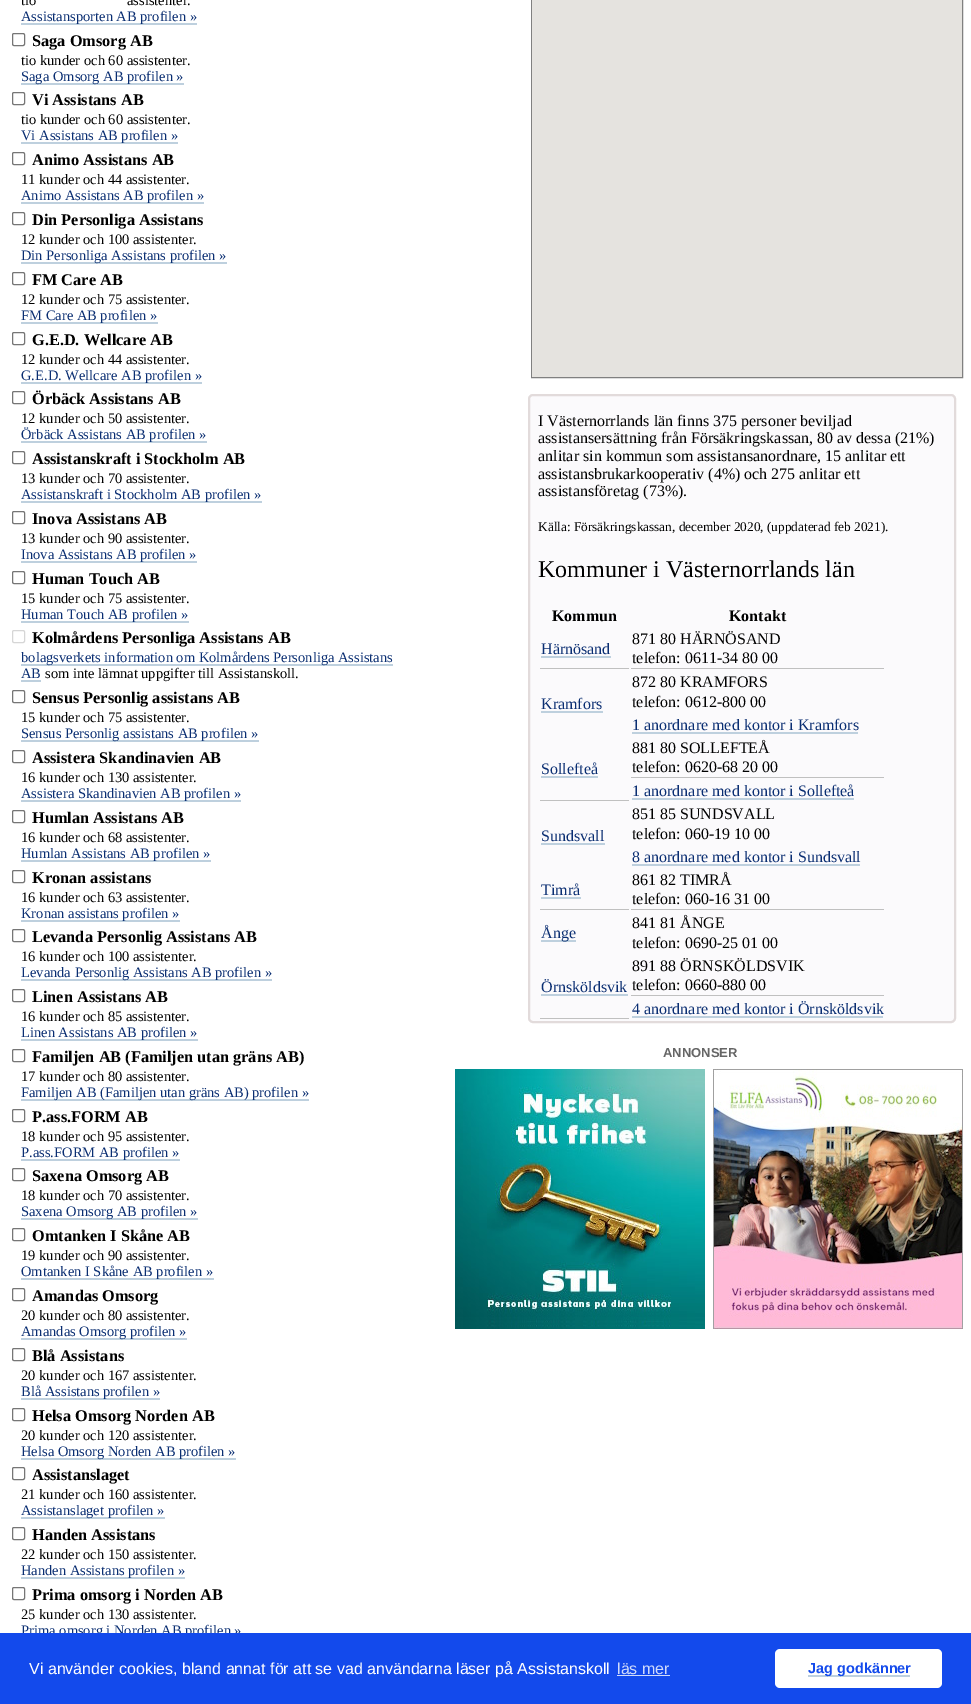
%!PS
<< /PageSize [971 1704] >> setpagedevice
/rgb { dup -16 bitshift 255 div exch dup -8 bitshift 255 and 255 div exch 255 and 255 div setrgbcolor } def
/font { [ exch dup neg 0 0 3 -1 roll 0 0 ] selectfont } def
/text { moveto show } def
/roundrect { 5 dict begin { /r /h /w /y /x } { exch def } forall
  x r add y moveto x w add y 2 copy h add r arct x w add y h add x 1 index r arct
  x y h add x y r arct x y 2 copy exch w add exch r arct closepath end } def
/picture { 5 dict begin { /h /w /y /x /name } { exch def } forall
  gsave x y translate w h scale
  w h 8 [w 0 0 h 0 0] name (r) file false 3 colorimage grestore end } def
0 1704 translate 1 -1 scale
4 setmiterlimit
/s1 { /LiberationSerif-Regular 14.5 font 16#000000 rgb } def
/s2 { /LiberationSerif-Regular 14.5 font 16#0A2E72 rgb } def
/s3 { /LiberationSerif-Bold 16.3 font 16#000000 rgb } def
/s4 { /LiberationSerif-Regular 16 font 16#000000 rgb } def
/s5 { /LiberationSerif-Regular 13.3 font 16#000000 rgb } def
/s6 { /LiberationSerif-Regular 24 font 16#000000 rgb } def
/s7 { /LiberationSerif-Bold 16 font 16#000000 rgb } def
/s8 { /LiberationSerif-Regular 16 font 16#0A2E72 rgb } def
/s9 { /LiberationSans-Bold 13 font 16#666666 rgb } def
/s10 { /LiberationSans-Regular 16 font 16#FFFFFF rgb } def
/s11 { /LiberationSans-Regular 16 font 16#D0DBFB rgb } def
/s12 { /LiberationSans-Bold 14.5 font 16#134AEC rgb } def
16#FFFFFF rgb
0 0 971 1704 rectfill
s1
(tio) 21 5 text
(assistenter.) 127 5 text
16#BED0DE rgb
21 23 176 2 rectfill
s2
(Assistansporten AB profilen ») 21 21 text
16#767676 rgb
12.5 33.5 12 12 1.5 roundrect stroke
s3
(Saga Omsorg AB) 32 46 text
s1
(tio kunder och 60 assistenter.) 21 65 text
16#BED0DE rgb
21 83 163 2 rectfill
s2
(Saga Omsorg AB profilen ») 21 81 text
16#767676 rgb
12.5 92.5 12 12 1.5 roundrect stroke
s3
(Vi Assistans AB) 32 105 text
s1
(tio kunder och 60 assistenter.) 21 124 text
16#BED0DE rgb
21 142 157 2 rectfill
s2
(Vi Assistans AB profilen ») 21 140 text
16#767676 rgb
12.5 152.5 12 12 1.5 roundrect stroke
s3
(Animo Assistans AB) 32 165 text
s1
(11 kunder och 44 assistenter.) 21 184 text
16#BED0DE rgb
21 202 183 2 rectfill
s2
(Animo Assistans AB profilen ») 21 200 text
16#767676 rgb
12.5 212.5 12 12 1.5 roundrect stroke
s3
(Din Personliga Assistans) 32 225 text
s1
(12 kunder och 100 assistenter.) 21 244 text
16#BED0DE rgb
21 262 206 2 rectfill
s2
(Din Personliga Assistans profilen ») 21 260 text
16#767676 rgb
12.5 272.5 12 12 1.5 roundrect stroke
s3
(FM Care AB) 32 285 text
s1
(12 kunder och 75 assistenter.) 21 304 text
16#BED0DE rgb
21 322 137 2 rectfill
s2
(FM Care AB profilen ») 21 320 text
16#767676 rgb
12.5 332.5 12 12 1.5 roundrect stroke
s3
(G.E.D. Wellcare AB) 32 345 text
s1
(12 kunder och 44 assistenter.) 21 364 text
16#BED0DE rgb
21 382 181 2 rectfill
s2
(G.E.D. Wellcare AB profilen ») 21 380 text
16#767676 rgb
12.5 391.5 12 12 1.5 roundrect stroke
s3
(Örbäck Assistans AB) 32 404 text
s1
(12 kunder och 50 assistenter.) 21 423 text
16#BED0DE rgb
21 441 186 2 rectfill
s2
(Örbäck Assistans AB profilen ») 21 439 text
16#767676 rgb
12.5 451.5 12 12 1.5 roundrect stroke
s3
(Assistanskraft i Stockholm AB) 32 464 text
s1
(13 kunder och 70 assistenter.) 21 483 text
16#BED0DE rgb
21 501 241 2 rectfill
s2
(Assistanskraft i Stockholm AB profilen ») 21 499 text
16#767676 rgb
12.5 511.5 12 12 1.5 roundrect stroke
s3
(Inova Assistans AB) 32 524 text
s1
(13 kunder och 90 assistenter.) 21 543 text
16#BED0DE rgb
21 561 176 2 rectfill
s2
(Inova Assistans AB profilen ») 21 559 text
16#767676 rgb
12.5 571.5 12 12 1.5 roundrect stroke
s3
(Human Touch AB) 32 584 text
s1
(15 kunder och 75 assistenter.) 21 603 text
16#BED0DE rgb
21 621 168 2 rectfill
s2
(Human Touch AB profilen ») 21 619 text
16#D6D6D6 rgb
12.5 630.5 12 12 1.5 roundrect stroke
s3
(Kolmårdens Personliga Assistans AB) 32 643 text
16#BED0DE rgb
21 664 372 2 rectfill
s2
(bolagsverkets information om Kolmårdens Personliga Assistans) 21 662 text
(AB) 21 678 text
16#BED0DE rgb
21 680 20 2 rectfill
s1
(som inte lämnat uppgifter till Assistanskoll.) 45 678 text
16#767676 rgb
12.5 690.5 12 12 1.5 roundrect stroke
s3
(Sensus Personlig assistans AB) 32 703 text
s1
(15 kunder och 75 assistenter.) 21 722 text
16#BED0DE rgb
21 740 238 2 rectfill
s2
(Sensus Personlig assistans AB profilen ») 21 738 text
16#767676 rgb
12.5 750.5 12 12 1.5 roundrect stroke
s3
(Assistera Skandinavien AB) 32 763 text
s1
(16 kunder och 130 assistenter.) 21 782 text
16#BED0DE rgb
21 800 220 2 rectfill
s2
(Assistera Skandinavien AB profilen ») 21 798 text
16#767676 rgb
12.5 810.5 12 12 1.5 roundrect stroke
s3
(Humlan Assistans AB) 32 823 text
s1
(16 kunder och 68 assistenter.) 21 842 text
16#BED0DE rgb
21 860 190 2 rectfill
s2
(Humlan Assistans AB profilen ») 21 858 text
16#767676 rgb
12.5 870.5 12 12 1.5 roundrect stroke
s3
(Kronan assistans) 32 883 text
s1
(16 kunder och 63 assistenter.) 21 902 text
16#BED0DE rgb
21 920 159 2 rectfill
s2
(Kronan assistans profilen ») 21 918 text
16#767676 rgb
12.5 929.5 12 12 1.5 roundrect stroke
s3
(Levanda Personlig Assistans AB) 32 942 text
s1
(16 kunder och 100 assistenter.) 21 961 text
16#BED0DE rgb
21 979 251 2 rectfill
s2
(Levanda Personlig Assistans AB profilen ») 21 977 text
16#767676 rgb
12.5 989.5 12 12 1.5 roundrect stroke
s3
(Linen Assistans AB) 32 1002 text
s1
(16 kunder och 85 assistenter.) 21 1021 text
16#BED0DE rgb
21 1039 177 2 rectfill
s2
(Linen Assistans AB profilen ») 21 1037 text
16#767676 rgb
12.5 1049.5 12 12 1.5 roundrect stroke
s3
(Familjen AB \(Familjen utan gräns AB\)) 32 1062 text
s1
(17 kunder och 80 assistenter.) 21 1081 text
16#BED0DE rgb
21 1099 288 2 rectfill
s2
(Familjen AB \(Familjen utan gräns AB\) profilen ») 21 1097 text
16#767676 rgb
12.5 1109.5 12 12 1.5 roundrect stroke
s3
(P.ass.FORM AB) 32 1122 text
s1
(18 kunder och 95 assistenter.) 21 1141 text
16#BED0DE rgb
21 1159 159 2 rectfill
s2
(P.ass.FORM AB profilen ») 21 1157 text
16#767676 rgb
12.5 1168.5 12 12 1.5 roundrect stroke
s3
(Saxena Omsorg AB) 32 1181 text
s1
(18 kunder och 70 assistenter.) 21 1200 text
16#BED0DE rgb
21 1218 177 2 rectfill
s2
(Saxena Omsorg AB profilen ») 21 1216 text
16#767676 rgb
12.5 1228.5 12 12 1.5 roundrect stroke
s3
(Omtanken I Skåne AB) 32 1241 text
s1
(19 kunder och 90 assistenter.) 21 1260 text
16#BED0DE rgb
21 1278 193 2 rectfill
s2
(Omtanken I Skåne AB profilen ») 21 1276 text
16#767676 rgb
12.5 1288.5 12 12 1.5 roundrect stroke
s3
(Amandas Omsorg) 32 1301 text
s1
(20 kunder och 80 assistenter.) 21 1320 text
16#BED0DE rgb
21 1338 166 2 rectfill
s2
(Amandas Omsorg profilen ») 21 1336 text
16#767676 rgb
12.5 1348.5 12 12 1.5 roundrect stroke
s3
(Blå Assistans) 32 1361 text
s1
(20 kunder och 167 assistenter.) 21 1380 text
16#BED0DE rgb
21 1398 139 2 rectfill
s2
(Blå Assistans profilen ») 21 1396 text
16#767676 rgb
12.5 1408.5 12 12 1.5 roundrect stroke
s3
(Helsa Omsorg Norden AB) 32 1421 text
s1
(20 kunder och 120 assistenter.) 21 1440 text
16#BED0DE rgb
21 1458 215 2 rectfill
s2
(Helsa Omsorg Norden AB profilen ») 21 1456 text
16#767676 rgb
12.5 1467.5 12 12 1.5 roundrect stroke
s3
(Assistanslaget) 32 1480 text
s1
(21 kunder och 160 assistenter.) 21 1499 text
16#BED0DE rgb
21 1517 144 2 rectfill
s2
(Assistanslaget profilen ») 21 1515 text
16#767676 rgb
12.5 1527.5 12 12 1.5 roundrect stroke
s3
(Handen Assistans) 32 1540 text
s1
(22 kunder och 150 assistenter.) 21 1559 text
16#BED0DE rgb
21 1577 164 2 rectfill
s2
(Handen Assistans profilen ») 21 1575 text
16#767676 rgb
12.5 1587.5 12 12 1.5 roundrect stroke
s3
(Prima omsorg i Norden AB) 32 1600 text
s1
(25 kunder och 130 assistenter.) 21 1619 text
s2
(Prima omsorg i Norden AB profilen ») 21 1635 text
16#808080 rgb
531.5 -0.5 431 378 rectstroke
16#E5E3DF rgb
532 0 430 377 rectfill
16#FBFAFC rgb
529 395 426 627 4 roundrect gsave fill grestore
16#E2DBDB rgb
2 setlinewidth
stroke
s4
(I Västernorrlands län finns 375 personer beviljad) 538 426 text
(assistansersättning från Försäkringskassan, 80 av dessa \(21%\)) 538 443 text
(anlitar sin kommun som assistansanordnare, 15 anlitar ett) 538 461 text
(assistansbrukarkooperativ \(4%\) och 275 anlitar ett) 538 479 text
(assistansföretag \(73%\).) 538 496 text
s5
(Källa: Försäkringskassan, december 2020, \(uppdaterad feb 2021\).) 538 531 text
s6
(Kommuner i Västernorrlands län) 538 577 text
s7
(Kommun) 552 621 text
(Kontakt) 729 621 text
16#C0C0C0 rgb
540 668 89 1 rectfill
s8
(Härnösand) 541 654 text
16#BED0DE rgb
541 656 70 2 rectfill
16#C0C0C0 rgb
631 668 253 1 rectfill
s4
(871 80 HÄRNÖSAND) 632 644 text
(telefon: 0611-34 80 00) 632 663 text
s8
(Kramfors) 541 709 text
16#BED0DE rgb
541 711 62 2 rectfill
s4
(872 80 KRAMFORS) 632 687 text
(telefon: 0612-800 00) 632 707 text
s8
(1 anordnare med kontor i Kramfors) 632 730 text
16#BED0DE rgb
632 732 226 2 rectfill
16#C0C0C0 rgb
540 800 89 1 rectfill
s8
(Sollefteå) 541 774 text
16#BED0DE rgb
541 776 57 2 rectfill
16#C0C0C0 rgb
631 777 253 1 rectfill
s4
(881 80 SOLLEFTEÅ) 632 753 text
(telefon: 0620-68 20 00) 632 772 text
s8
(1 anordnare med kontor i Sollefteå) 632 796 text
16#BED0DE rgb
632 798 222 2 rectfill
s8
(Sundsvall) 541 841 text
16#BED0DE rgb
541 843 64 2 rectfill
s4
(851 85 SUNDSVALL) 632 819 text
(telefon: 060-19 10 00) 632 839 text
s8
(8 anordnare med kontor i Sundsvall) 632 862 text
16#BED0DE rgb
632 864 228 2 rectfill
16#C0C0C0 rgb
540 909 89 1 rectfill
s8
(Timrå) 541 895 text
16#BED0DE rgb
541 897 40 2 rectfill
16#C0C0C0 rgb
631 909 253 1 rectfill
s4
(861 82 TIMRÅ) 632 885 text
(telefon: 060-16 31 00) 632 904 text
16#BED0DE rgb
541 940 35 2 rectfill
s8
(Ånge) 541 938 text
s4
(841 81 ÅNGE) 632 928 text
(telefon: 0690-25 01 00) 632 948 text
16#C0C0C0 rgb
540 1018 89 1 rectfill
s8
(Örnsköldsvik) 541 992 text
16#BED0DE rgb
541 994 87 2 rectfill
16#C0C0C0 rgb
631 995 253 1 rectfill
s4
(891 88 ÖRNSKÖLDSVIK) 632 971 text
(telefon: 0660-880 00) 632 990 text
s8
(4 anordnare med kontor i Örnsköldsvik) 632 1014 text
16#BED0DE rgb
632 1016 251 2 rectfill
s9
(ANNONSER) 663 1057 text
(pic1.raw) 455 1069 250 260 picture
(pic2.raw) 713 1069 250 260 picture
16#134AEC rgb
0 1633 971 71 rectfill
s10
(Vi använder cookies, bland annat för att se vad användarna läser på Assistanskoll) 29 1674 text
s11
(läs mer) 617 1674 text
617 1675 53 1 rectfill
16#FFFFFF rgb
775 1649 167 39 5 roundrect fill
16#BED0DE rgb
808 1675 102 2 rectfill
s12
(Jag godkänner) 808 1673 text
showpage
